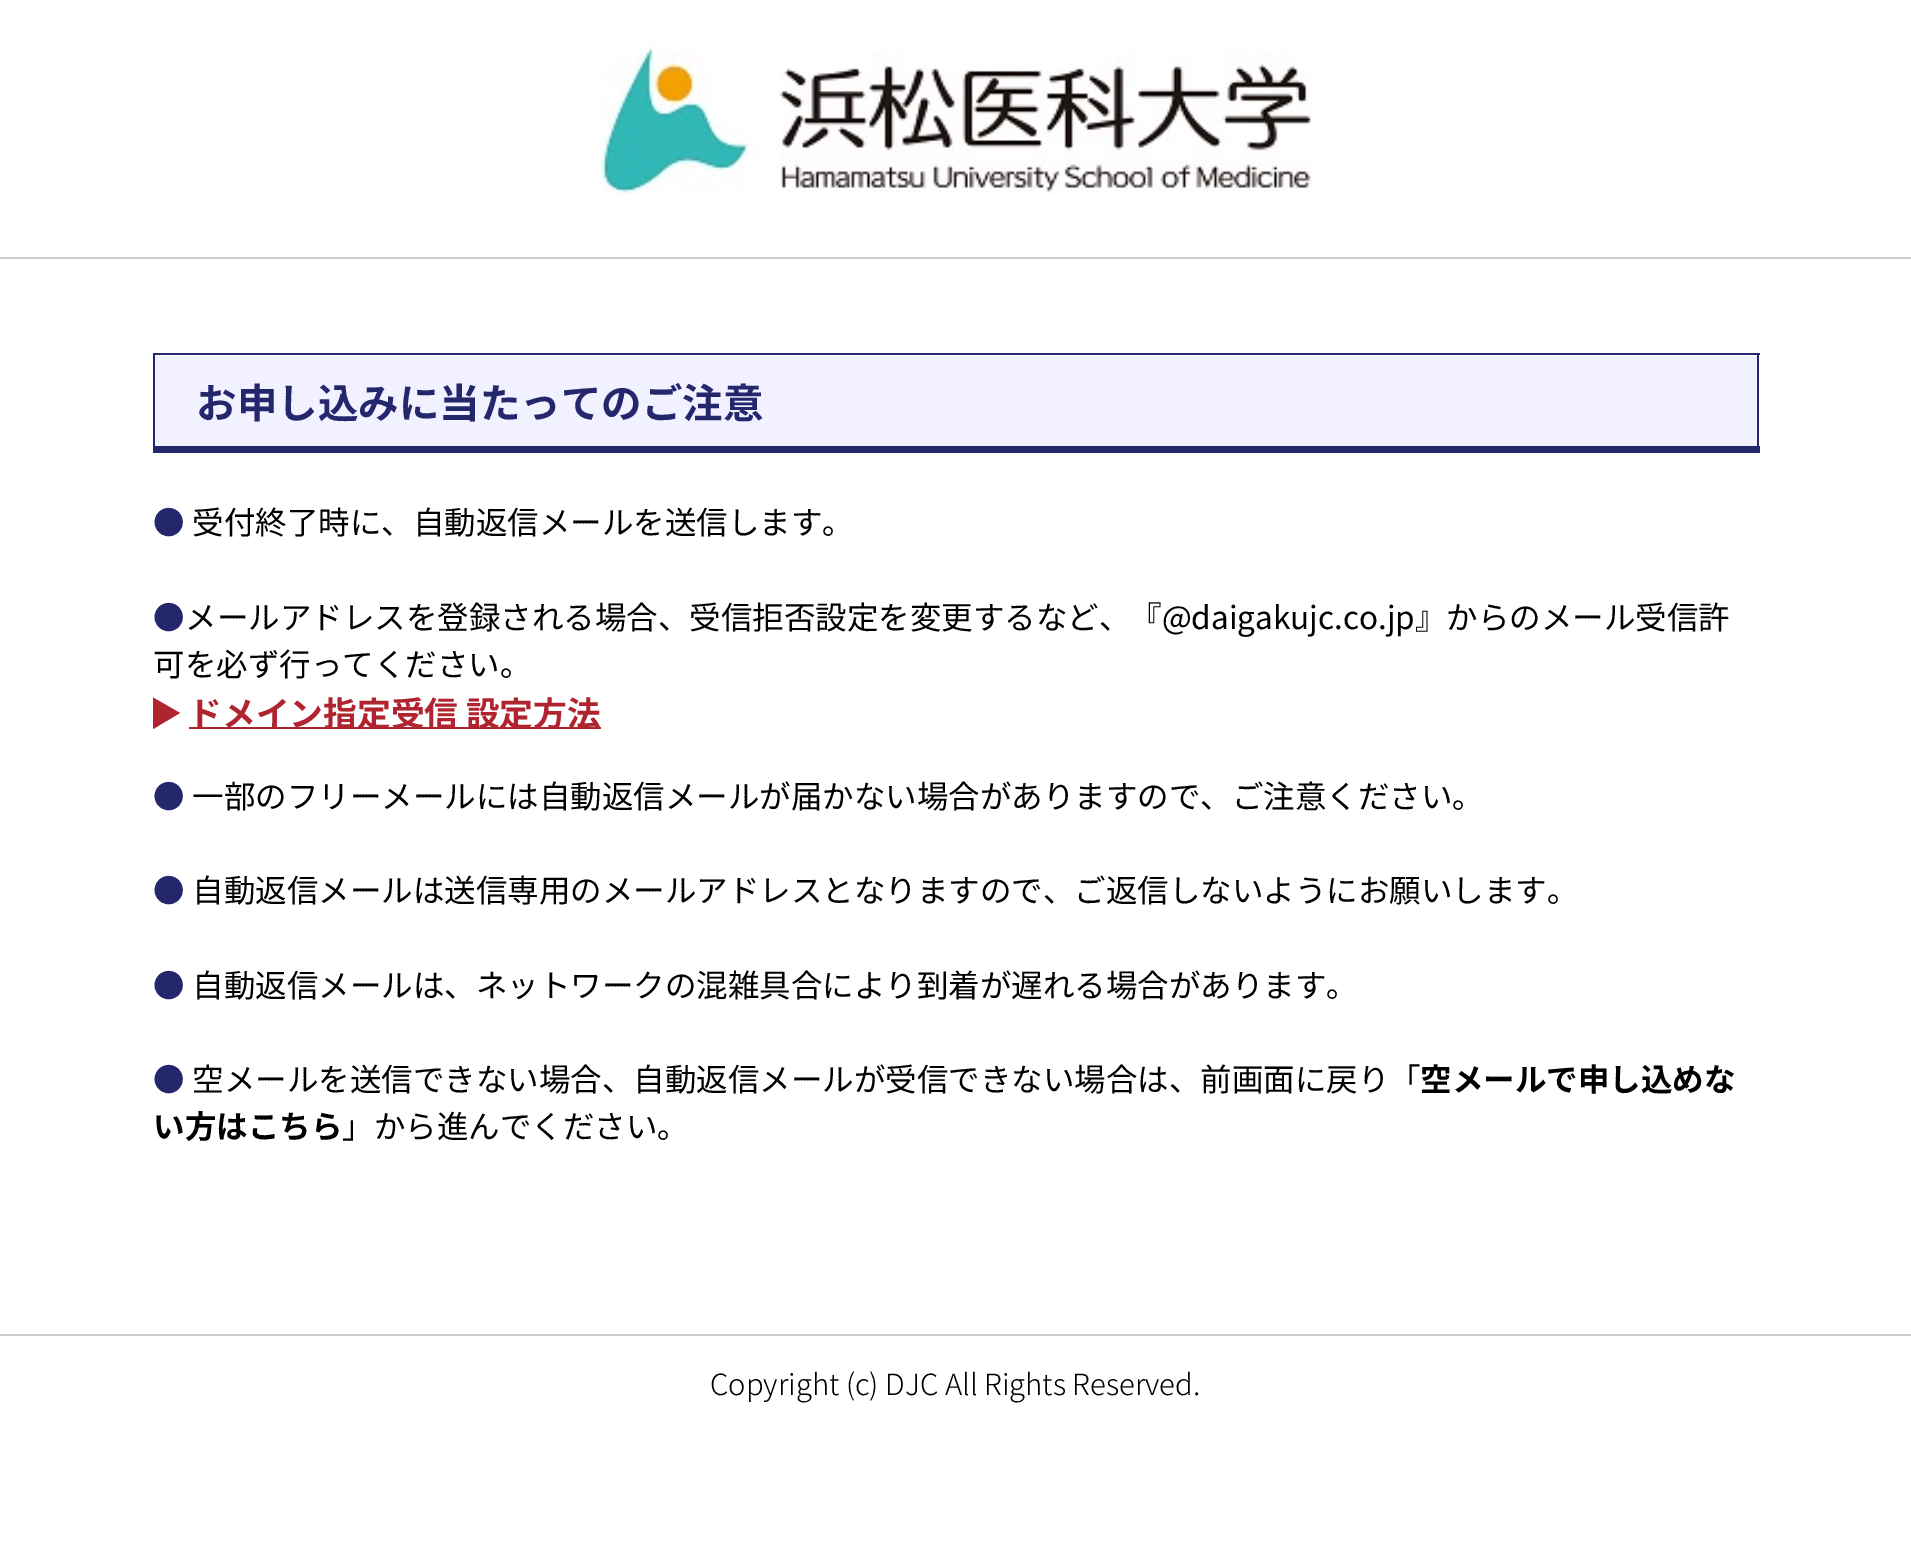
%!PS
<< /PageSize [1911 1563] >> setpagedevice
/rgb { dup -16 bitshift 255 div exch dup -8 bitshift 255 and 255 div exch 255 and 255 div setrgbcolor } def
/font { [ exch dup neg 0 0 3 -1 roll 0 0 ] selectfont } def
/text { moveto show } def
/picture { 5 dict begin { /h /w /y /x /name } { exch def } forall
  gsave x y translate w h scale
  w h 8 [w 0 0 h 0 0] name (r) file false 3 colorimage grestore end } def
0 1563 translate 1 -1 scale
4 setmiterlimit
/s1 { /NotoSansJP-Bold 40.5 font 16#25276D rgb } def
/s2 { /NotoSansJP-Regular 31.5 font 16#25276D rgb } def
/s3 { /NotoSansJP-Regular 31.5 font 16#000000 rgb } def
/s4 { /NotoSansJP-Bold 33.75 font 16#B0242F rgb } def
/s5 { /NotoSansJP-Bold 31.5 font 16#000000 rgb } def
/s6 { /NotoSansJP-Light 29.25 font 16#000000 rgb } def
16#FFFFFF rgb
0 0 1911 1563 rectfill
16#CCCCCC rgb
0 257 1911 2 rectfill
(pic1.raw) 600 43 714 152 picture
16#F1F1FF rgb
155 356 1602 90 rectfill
16#25276D rgb
153 353 1607 2 rectfill
1757 353 2 99 rectfill
153 446 1607 7 rectfill
153 353 2 99 rectfill
s1
(お申し込みに当たってのご注意) 196 418 text
s2
(●) 153 534 text
s3
(受付終了時に、自動返信メールを送信します。) 192 534 text
s2
(●) 153 629 text
s3
(メールアドレスを登録される場合、受信拒否設定を変更するなど、『@daigakujc.co.jp』からのメール受信許) 185 629 text
(可を必ず行ってください。) 153 676 text
16#B0242F rgb
153 729 moveto 153 697.5 lineto 180 713 lineto closepath fill
189 727 412 2 rectfill
s4
(ドメイン指定受信 設定方法) 188 726 text
s2
(●) 153 808 text
s3
(一部のフリーメールには自動返信メールが届かない場合がありますので、ご注意ください。) 192 808 text
s2
(●) 153 902 text
s3
(自動返信メールは送信専用のメールアドレスとなりますので、ご返信しないようにお願いします。) 192 902 text
s2
(●) 153 997 text
s3
(自動返信メールは、ネットワークの混雑具合により到着が遅れる場合があります。) 192 997 text
s2
(●) 153 1091 text
s3
(空メールを送信できない場合、自動返信メールが受信できない場合は、前画面に戻り「) 192 1091 text
s5
(空メールで申し込めな) 1420 1091 text
(い方はこちら) 153 1138 text
s3
(」から進んでください。) 342 1138 text
16#CCCCCC rgb
0 1334 1911 2 rectfill
s6
(Copyright \(c\) DJC All Rights Reserved.) 710 1395 text
showpage
